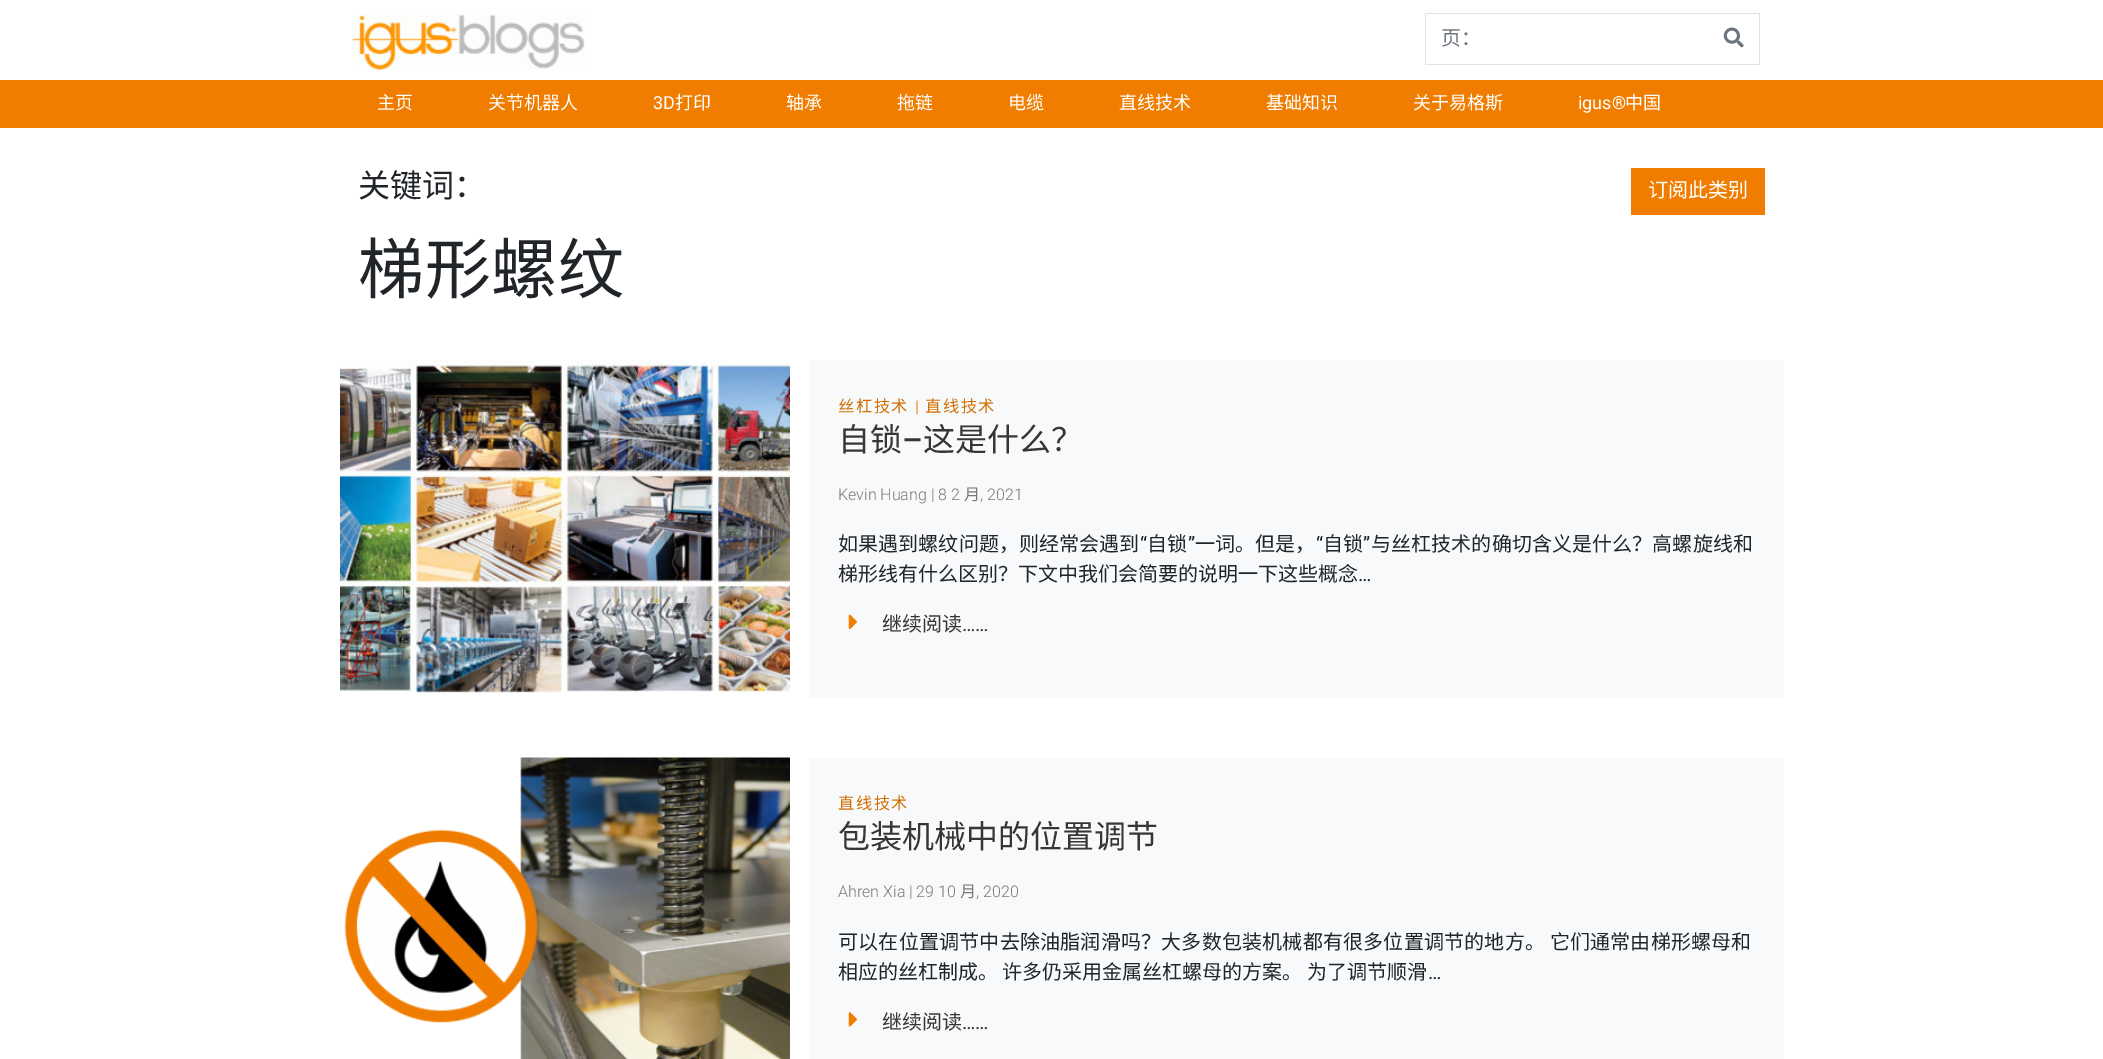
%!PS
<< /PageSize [2103 1059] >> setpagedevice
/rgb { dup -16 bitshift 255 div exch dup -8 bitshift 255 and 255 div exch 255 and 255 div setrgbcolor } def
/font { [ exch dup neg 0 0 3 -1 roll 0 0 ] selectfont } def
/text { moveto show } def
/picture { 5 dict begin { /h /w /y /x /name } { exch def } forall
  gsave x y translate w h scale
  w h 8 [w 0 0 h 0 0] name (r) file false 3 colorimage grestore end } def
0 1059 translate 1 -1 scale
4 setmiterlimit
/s1 { /NotoSansCJKSC-Regular 20 font 16#6C757D rgb } def
/s2 { /NotoSansCJKSC-Regular 18 font 16#FFFFFF rgb } def
/s3 { /Roboto-Regular 18 font 16#FFFFFF rgb } def
/s4 { /NotoSansCJKSC-Regular 32 font 16#212529 rgb } def
/s5 { /NotoSansCJKSC-Regular 20 font 16#FFFFFF rgb } def
/s6 { /NotoSansCJKSC-Regular 32 font 16#363636 rgb } def
/s7 { /Roboto-Medium 32 font 16#363636 rgb } def
/s8 { /Roboto-Light 16 font 16#787878 rgb } def
/s9 { /NotoSansCJKSC-Regular 16 font 16#787878 rgb } def
/s10 { /NotoSansCJKSC-Regular 20 font 16#212529 rgb } def
/s11 { /Roboto-Regular 20 font 16#212529 rgb } def
/s12 { /NotoSansCJKSC-Regular 20 font 16#363636 rgb } def
/s13 { /Roboto-Regular 20 font 16#363636 rgb } def
16#FFFFFF rgb
0 0 2103 1059 rectfill
(pic1.raw) 352 14 233 56 picture
16#DEE2E6 rgb
1425 13 335 1 rectfill
1425 64 285 1 rectfill
1425 13 1 52 rectfill
s1
(页：) 1441 45 text
16#DEE2E6 rgb
1759 13 1 52 rectfill
1709 64 51 1 rectfill
(pic2.raw) 1723 27 21 21 picture
16#F07D00 rgb
0 80 2103 48 rectfill
s2
(主页) 377 109 text
(关节机器人) 488 109 text
s3
(3D) 653 109 text
s2
(打印) 675 109 text
(轴承) 786 109 text
(拖链) 897 109 text
(电缆) 1008 109 text
(直线技术) 1119 109 text
(基础知识) 1266 109 text
(关于易格斯) 1413 109 text
s3
(igus®) 1578 109 text
s2
(中国) 1625 109 text
s4
(关键词：) 358 197 text
/NotoSansCJKSC-Regular 66 font
358 293 moveto 0.5 0 (梯形螺纹) ashow
16#F07D00 rgb
1631 168 134 47 rectfill
s5
(订阅此类别) 1648 197 text
(pic3.raw) 340 360 450 333 picture
16#F8F9FA rgb
809 360 975 338 rectfill
/NotoSansCJKSC-Regular 16.25 font
16#D26E00 rgb
838 412 moveto 1.5 0 (丝杠技术) ashow
/Roboto-Regular 16.25 font
16#F07D00 rgb
915 412 moveto 1.5 0 (|) ashow
/NotoSansCJKSC-Regular 16.25 font
16#D26E00 rgb
925 412 moveto 1.5 0 (直线技术) ashow
s6
(自锁) 838 451 text
s7
(–) 902 451 text
s6
(这是什么？) 923 451 text
s8
(Kevin Huang | 8 2) 838 500 text
s9
(月) 964 500 text
s8
(, 2021) 980 500 text
/NotoSansCJKSC-Regular 20 font
16#212529 rgb
838 551 moveto 0.1 0 (如果遇到螺纹问题，则经常会遇到) ashow
/Roboto-Regular 20 font
1140 551 moveto 0.1 0 (“) ashow
/NotoSansCJKSC-Regular 20 font
1147 551 moveto 0.1 0 (自锁) ashow
/Roboto-Regular 20 font
1188 551 moveto 0.1 0 (”) ashow
/NotoSansCJKSC-Regular 20 font
1195 551 moveto 0.1 0 (一词。但是，) ashow
/Roboto-Regular 20 font
1316 551 moveto 0.1 0 (“) ashow
/NotoSansCJKSC-Regular 20 font
1323 551 moveto 0.1 0 (自锁) ashow
/Roboto-Regular 20 font
1363 551 moveto 0.1 0 (”) ashow
/NotoSansCJKSC-Regular 20 font
1371 551 moveto 0.1 0 (与丝杠技术的确切含义是什么？高螺旋线和) ashow
(梯形线有什么区别？下文中我们会简要的说明一下这些概念) 838 581 text
s11
(…) 1358 581 text
(pic4.raw) 848 614 9 16 picture
s12
(继续阅读) 882 631 text
s13
(……) 962 631 text
(pic5.raw) 344 757 446 302 picture
16#F8F9FA rgb
809 758 975 301 rectfill
/NotoSansCJKSC-Regular 16.25 font
16#D26E00 rgb
838 809 moveto 1.5 0 (直线技术) ashow
s6
(包装机械中的位置调节) 838 848 text
s8
(Ahren Xia | 29 10) 838 897 text
s9
(月) 960 897 text
s8
(, 2020) 976 897 text
/NotoSansCJKSC-Regular 20 font
16#212529 rgb
838 949 moveto 0.2 0 (可以在位置调节中去除油脂润滑吗？大多数包装机械都有很多位置调节的地方。 它们通常由梯形螺母和) ashow
(相应的丝杠制成。 许多仍采用金属丝杠螺母的方案。 为了调节顺滑) 838 979 text
s11
(…) 1428 979 text
(pic6.raw) 848 1012 9 15 picture
s12
(继续阅读) 882 1029 text
s13
(……) 962 1029 text
showpage
